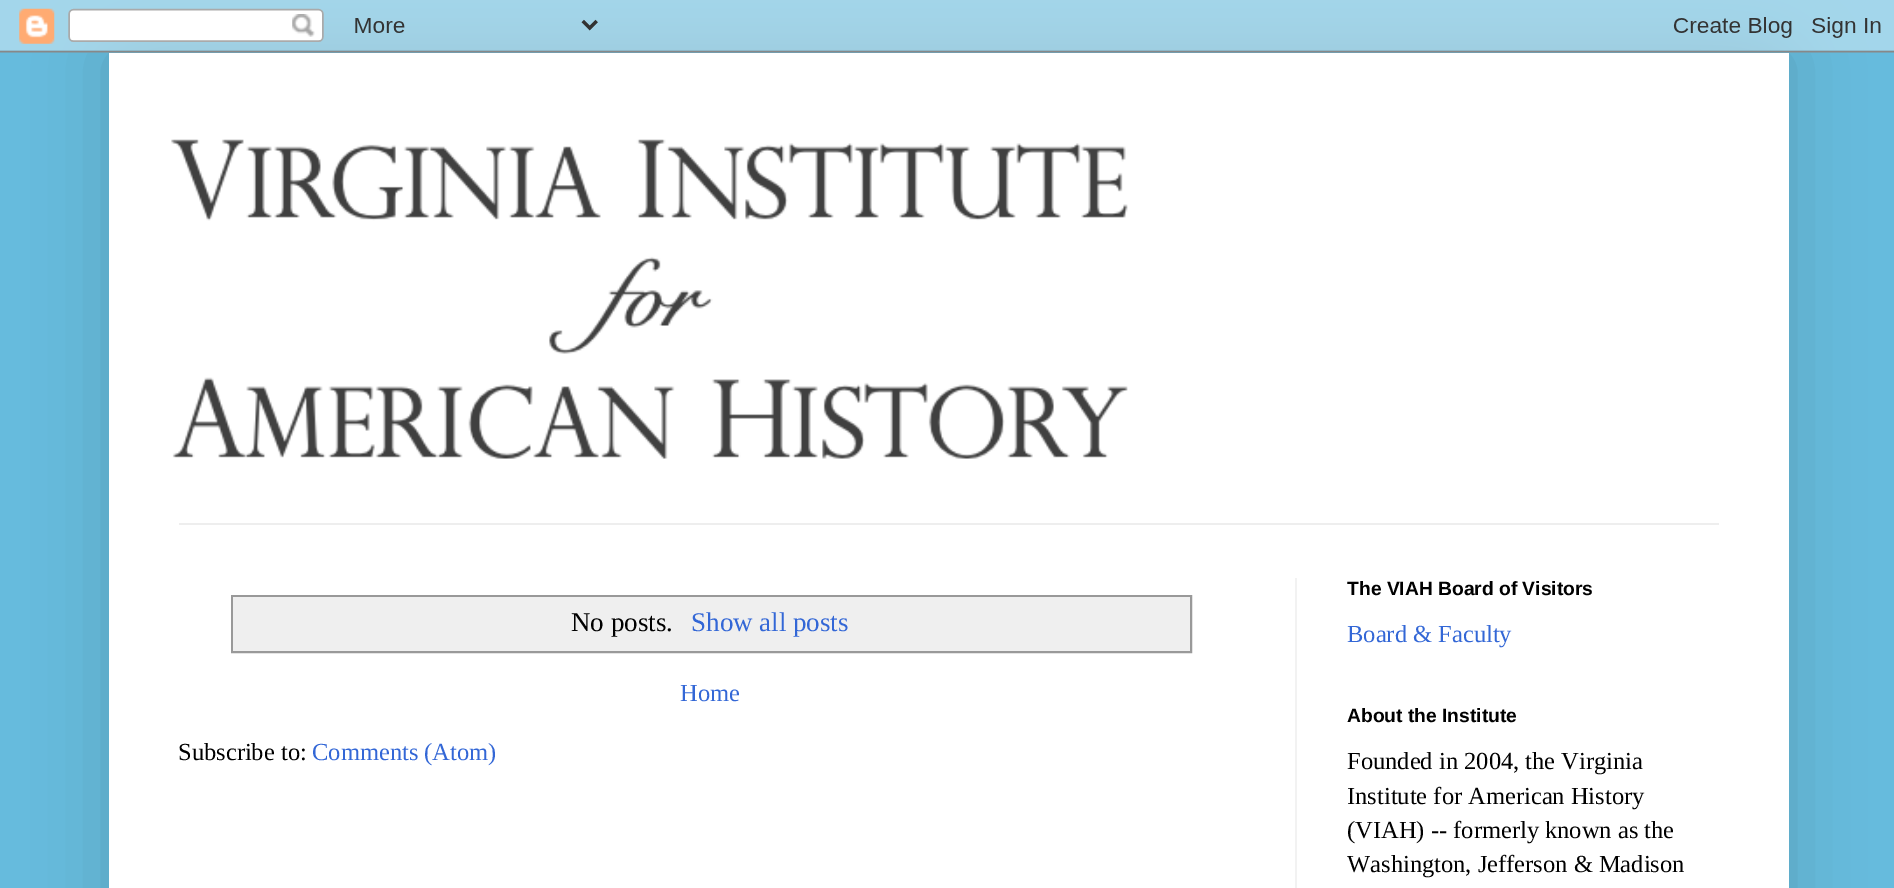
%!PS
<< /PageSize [1894 888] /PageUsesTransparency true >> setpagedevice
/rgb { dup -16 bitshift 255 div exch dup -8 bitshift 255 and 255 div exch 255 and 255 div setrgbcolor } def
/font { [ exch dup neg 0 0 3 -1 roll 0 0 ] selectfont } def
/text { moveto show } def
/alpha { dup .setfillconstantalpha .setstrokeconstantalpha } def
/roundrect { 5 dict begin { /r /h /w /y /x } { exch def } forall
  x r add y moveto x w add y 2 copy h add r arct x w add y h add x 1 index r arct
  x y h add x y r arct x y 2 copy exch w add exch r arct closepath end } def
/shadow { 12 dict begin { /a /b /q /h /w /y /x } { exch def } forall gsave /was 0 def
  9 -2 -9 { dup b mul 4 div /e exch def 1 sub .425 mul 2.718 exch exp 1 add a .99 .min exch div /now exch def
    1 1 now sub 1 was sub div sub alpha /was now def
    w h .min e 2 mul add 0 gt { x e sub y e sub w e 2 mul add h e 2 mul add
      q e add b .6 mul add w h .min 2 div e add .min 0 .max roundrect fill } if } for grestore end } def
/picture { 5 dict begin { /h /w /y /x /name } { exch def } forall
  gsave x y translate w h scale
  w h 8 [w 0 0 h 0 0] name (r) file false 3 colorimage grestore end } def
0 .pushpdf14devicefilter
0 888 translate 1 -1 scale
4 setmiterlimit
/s1 { /LiberationSerif-Regular 27 font 16#000000 rgb } def
/s2 { /LiberationSerif-Regular 27 font 16#3367D6 rgb } def
/s3 { /LiberationSerif-Regular 24.5 font 16#3367D6 rgb } def
/s4 { /LiberationSerif-Regular 24.5 font 16#000000 rgb } def
/s5 { /LiberationSans-Bold 19.25 font 16#000000 rgb } def
16#66BBDD rgb
0 0 1894 888 rectfill
16#000000 rgb
109 53 1680 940 0 35 0.15 shadow
(pic1.raw) 0 0 1894 53 picture
16#FFFFFF rgb
109 53 1680 835 rectfill
(pic2.raw) 171 139 957 320 picture
16#EEEEEE rgb
179 523 1540 2 rectfill
16#F2F2F2 rgb
1295 578 2 310 rectfill
16#999999 rgb
2 setlinewidth
232 596 959 56 rectstroke
16#EFEFEF rgb
233 597 957 54 rectfill
s1
(No posts.) 571 631 text
s2
(Show all posts) 691 631 text
s3
(Home) 680 701 text
s4
(Subscribe to:) 178 760 text
s3
(Comments \(Atom\)) 312 760 text
s5
(The VIAH Board of Visitors) 1347 595 text
s3
(Board & Faculty) 1347 642 text
s5
(About the Institute) 1347 722 text
s4
(Founded in 2004, the Virginia) 1347 769 text
(Institute for American History) 1347 804 text
(\(VIAH\) -- formerly known as the) 1347 838 text
(Washington, Jefferson & Madison) 1347 872 text
.poppdf14devicefilter showpage
